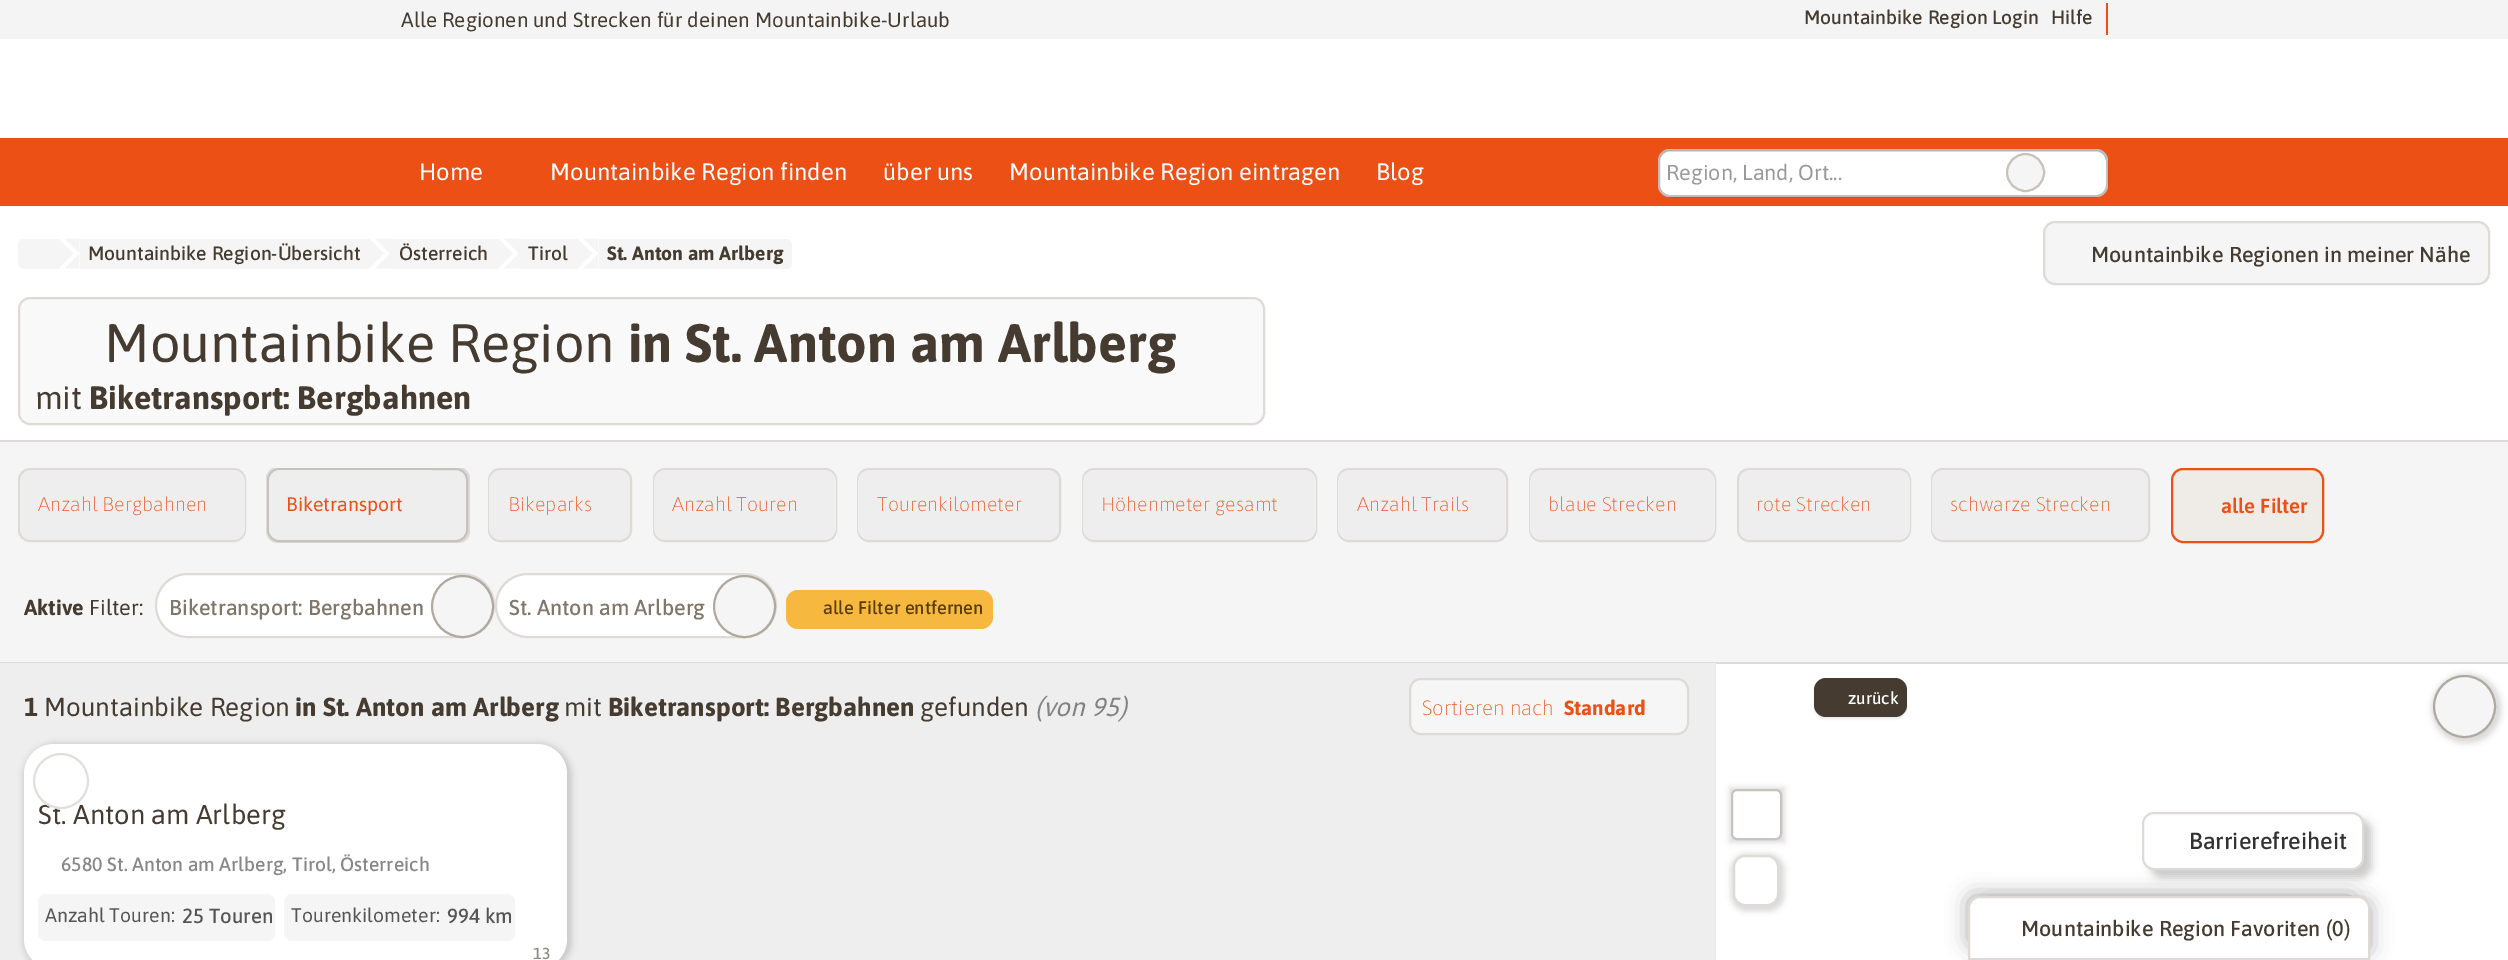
%!PS
<< /PageSize [2508 960] /PageUsesTransparency true >> setpagedevice
/rgb { dup -16 bitshift 255 div exch dup -8 bitshift 255 and 255 div exch 255 and 255 div setrgbcolor } def
/font { [ exch dup neg 0 0 3 -1 roll 0 0 ] selectfont } def
/text { moveto show } def
/alpha { dup .setfillconstantalpha .setstrokeconstantalpha } def
/circle { newpath 0 360 arc closepath } def
/roundrect { 5 dict begin { /r /h /w /y /x } { exch def } forall
  x r add y moveto x w add y 2 copy h add r arct x w add y h add x 1 index r arct
  x y h add x y r arct x y 2 copy exch w add exch r arct closepath end } def
/shadow { 12 dict begin { /a /b /q /h /w /y /x } { exch def } forall gsave /was 0 def
  9 -2 -9 { dup b mul 4 div /e exch def 1 sub .425 mul 2.718 exch exp 1 add a .99 .min exch div /now exch def
    1 1 now sub 1 was sub div sub alpha /was now def
    w h .min e 2 mul add 0 gt { x e sub y e sub w e 2 mul add h e 2 mul add
      q e add b .6 mul add w h .min 2 div e add .min 0 .max roundrect fill } if } for grestore end } def
0 .pushpdf14devicefilter
0 960 translate 1 -1 scale
4 setmiterlimit
/s1 { /Asap-Regular 20.6 font 16#453B30 rgb } def
/s2 { /Asap-Medium 19.4 font 16#453B30 rgb } def
/s3 { /Asap-Medium 23.25 font 16#333333 rgb } def
/s4 { /Asap-Regular 23.75 font 16#FFFFFF rgb } def
/s5 { /Asap-Regular 21.6 font 16#999999 rgb } def
/s6 { /Asap-Bold 19.4 font 16#453B30 rgb } def
/s7 { /Asap-Medium 21.6 font 16#453B30 rgb } def
/s8 { /Asap-Regular 54 font 16#453B30 rgb } def
/s9 { /Asap-Bold 54 font 16#453B30 rgb } def
/s10 { /Asap-Regular 32.4 font 16#453B30 rgb } def
/s11 { /Asap-Bold 32.4 font 16#453B30 rgb } def
/s12 { /Asap-Thin 19.5 font 16#EC5014 rgb } def
/s13 { /Asap-Regular 19.5 font 16#EC5014 rgb } def
/s14 { /Asap-SemiBold 20.5 font 16#EC5014 rgb } def
/s15 { /Asap-Bold 21.6 font 16#453B30 rgb } def
/s16 { /Asap-Regular 21.6 font 16#453B30 rgb } def
/s17 { /Asap-Medium 21.6 font 16#807669 rgb } def
/s18 { /Asap-Medium 18.25 font 16#5B3D04 rgb } def
/s19 { /Asap-Bold 26 font 16#453B30 rgb } def
/s20 { /Asap-Regular 26 font 16#453B30 rgb } def
/s21 { /Asap-Italic 26 font 16#828282 rgb } def
/s22 { /Asap-Thin 20.5 font 16#EC5014 rgb } def
/s23 { /Asap-Bold 20.5 font 16#EC5014 rgb } def
/s24 { /Asap-Regular 27.25 font 16#453B30 rgb } def
/s25 { /Asap-Medium 19.4 font 16#888888 rgb } def
/s26 { /Asap-Regular 19.5 font 16#555555 rgb } def
/s27 { /Asap-Medium 20.5 font 16#555555 rgb } def
/s28 { /Asap-Medium 16 font 16#8F8983 rgb } def
/s29 { /Asap-Medium 17 font 16#FFFFFF rgb } def
16#FFFFFF rgb
0 0 2508 960 rectfill
16#F4F4F4 rgb
0 0 2508 39 rectfill
s1
(Alle Regionen und Strecken für deinen Mountainbike-Urlaub) 401 27 text
s2
(Mountainbike Region Login) 1804 24 text
16#EC5014 rgb
2106 3 2 32 rectfill
s2
(Hilfe) 2051 24 text
16#000000 rgb
2150 819 222 59 12 4 0.2 shadow
1983 903 387 50 5 11 0.3 shadow
1968 896 387 49 5 11 0.3 shadow
16#FFFFFF rgb
2143 813 220 56 11 roundrect gsave fill grestore
16#DEDBD7 rgb
2 setlinewidth
stroke
s3
(Barrierefreiheit) 2189 849 text
16#EC5014 rgb
0 138 2508 68 rectfill
s4
(Home) 419 180 text
(Mountainbike Region finden) 550 180 text
(über uns) 883 180 text
(Mountainbike Region eintragen) 1009 180 text
(Blog) 1376 180 text
1658 149 450 48 12 roundrect fill
16#ECECEC rgb
1670 152 moveto 2096 152 lineto 2101 152 2106 156 2106 162 curveto 2106 161 lineto 2106 155 2101 150 2095 150 curveto 1670 150 lineto 1664 150 1659 155 1659 161 curveto 1659 162 lineto 1659 156 1664 152 1670 152 curveto closepath fill
0.25 alpha
16#000000 rgb
1659 150 448 46 11 roundrect stroke
1 alpha
s5
(Region, Land, Ort...) 1666 180 text
16#F5F5F5 rgb
2025.5 172.5 18.5 circle gsave fill grestore
16#C7C2BB rgb
stroke
16#F5F5F5 rgb
24 239 moveto 59 239 lineto 59 269 lineto 24 269 lineto 20.5 269 18 266.5 18 263 curveto 18 245 lineto 18 241.5 20.5 239 24 239 curveto closepath fill
64.5 238.5 moveto 79.5 238.5 lineto 79.5 253.5 lineto closepath fill
79.5 268.5 moveto 64.5 268.5 lineto 79.5 253.5 lineto closepath fill
58.5 268.5 moveto 58.5 238.5 lineto 73.5 253.5 lineto closepath fill
80 239 289 30 rectfill
s2
(Mountainbike Region-Übersicht) 88 260 text
16#F5F5F5 rgb
375 238.5 moveto 390 238.5 lineto 390 253.5 lineto closepath fill
390 268.5 moveto 375 268.5 lineto 390 253.5 lineto closepath fill
369 268.5 moveto 369 238.5 lineto 384 253.5 lineto closepath fill
390 239 108 30 rectfill
s2
(Österreich) 399 260 text
16#F5F5F5 rgb
504 238.5 moveto 519 238.5 lineto 519 253.5 lineto closepath fill
519 268.5 moveto 504 268.5 lineto 519 253.5 lineto closepath fill
498 268.5 moveto 498 238.5 lineto 513 253.5 lineto closepath fill
519 239 59 30 rectfill
s2
(Tirol) 528 260 text
16#F5F5F5 rgb
583.5 238.5 moveto 598.5 238.5 lineto 598.5 253.5 lineto closepath fill
598.5 268.5 moveto 583.5 268.5 lineto 598.5 253.5 lineto closepath fill
577.5 268.5 moveto 577.5 238.5 lineto 592.5 253.5 lineto closepath fill
599 239 moveto 786 239 lineto 789.5 239 792 241.5 792 245 curveto 792 263 lineto 792 266.5 789.5 269 786 269 curveto 599 269 lineto closepath fill
s6
(St. Anton am Arlberg) 607 260 text
16#F5F5F5 rgb
2044 222 445 62 11 roundrect gsave fill grestore
16#DEDBD7 rgb
stroke
s7
(Mountainbike Regionen in meiner Nähe) 2091 262 text
16#FAF9F9 rgb
19 298 1245 126 11 roundrect gsave fill grestore
16#DEDBD7 rgb
stroke
s8
(Mountainbike Region) 104 362 text
s9
(in St. Anton am Arlberg) 628 362 text
s10
(mit) 35 409 text
s11
(Biketransport: Bergbahnen) 89 409 text
16#F5F5F5 rgb
0 442 2508 220 rectfill
16#DEDBD7 rgb
0 440 2508 2 rectfill
0 662 2508 2 rectfill
16#EEEEEE rgb
19 469 226 72 11 roundrect gsave fill grestore
16#DEDBD7 rgb
stroke
16#EEEEEE rgb
20 470 225 70 12 roundrect fill
s12
(Anzahl Bergbahnen) 38 511 text
gsave
18 468 2153 84 rectclip
16#DEDBD7 rgb
281 467 moveto 279 467 277 468 275 469 curveto 279 468 lineto 456 468 lineto 463 468 468 473 468 480 curveto 468 530 lineto 468 533 467 536 464 538 curveto 468 536 470 532 470 528 curveto 470 479 lineto 470 472 465 467 458 467 curveto closepath fill
278 467 moveto 271 467 266 472 266 479 curveto 266 528 lineto 266 531 267 533 269 535 curveto 268 534 267 532 267 530 curveto 267 480 lineto 267 473 272 468 279 468 curveto 456 468 lineto 459 468 462 469 464 471 curveto 462 469 459 467 455 467 curveto closepath fill
grestore
16#DEDBD7 rgb
268 476 moveto 267 478 266 480 266 482 curveto 266 531 lineto 266 538 271 543 278 543 curveto 455 543 lineto 459 543 463 541 465 537 curveto 463 540 460 542 456 542 curveto 279 542 lineto 272 542 267 536 267 530 curveto 267 480 lineto closepath fill
273 540 moveto 275 542 278 543 281 543 curveto 458 543 lineto 465 543 470 538 470 531 curveto 470 482 lineto 470 478 468 475 465 473 curveto 467 475 468 477 468 480 curveto 468 530 lineto 468 536 463 542 456 542 curveto 279 542 lineto 277 542 275 541 273 540 curveto closepath fill
16#EEEEEE rgb
268 469 199 72 11 roundrect gsave fill grestore
16#C7C2BB rgb
stroke
16#EEEEEE rgb
269 470 172 70 12 roundrect fill
s13
(Biketransport) 286 511 text
16#EEEEEE rgb
489 469 142 72 11 roundrect gsave fill grestore
16#DEDBD7 rgb
stroke
16#EEEEEE rgb
489 470 141 70 12 roundrect fill
s12
(Bikeparks) 508 511 text
16#EEEEEE rgb
654 469 182 72 11 roundrect gsave fill grestore
16#DEDBD7 rgb
stroke
16#EEEEEE rgb
654 470 182 70 12 roundrect fill
s12
(Anzahl Touren) 672 511 text
16#EEEEEE rgb
858 469 202 72 11 roundrect gsave fill grestore
16#DEDBD7 rgb
stroke
16#EEEEEE rgb
858 470 201 70 12 roundrect fill
s12
(Tourenkilometer) 877 511 text
16#EEEEEE rgb
1083 469 233 72 11 roundrect gsave fill grestore
16#DEDBD7 rgb
stroke
16#EEEEEE rgb
1083 470 233 70 12 roundrect fill
s12
(Höhenmeter gesamt) 1101 511 text
16#EEEEEE rgb
1338 469 169 72 11 roundrect gsave fill grestore
16#DEDBD7 rgb
stroke
16#EEEEEE rgb
1338 470 168 70 12 roundrect fill
s12
(Anzahl Trails) 1357 511 text
16#EEEEEE rgb
1530 469 185 72 11 roundrect gsave fill grestore
16#DEDBD7 rgb
stroke
16#EEEEEE rgb
1530 470 185 70 12 roundrect fill
s12
(blaue Strecken) 1548 511 text
16#EEEEEE rgb
1738 469 172 72 11 roundrect gsave fill grestore
16#DEDBD7 rgb
stroke
16#EEEEEE rgb
1739 470 171 70 12 roundrect fill
s12
(rote Strecken) 1756 511 text
16#EEEEEE rgb
1932 469 217 72 11 roundrect gsave fill grestore
16#DEDBD7 rgb
stroke
16#EEEEEE rgb
1932 470 216 70 12 roundrect fill
s12
(schwarze Strecken) 1950 511 text
16#EFECE8 rgb
2172 469 151 73 11 roundrect gsave fill grestore
16#EC5014 rgb
stroke
s14
(alle Filter) 2221 513 text
s15
(Aktive) 24 615 text
s16
(Filter:) 89 615 text
16#FFFFFF rgb
156 574 338 63 31.5 roundrect gsave fill grestore
16#DEDBD7 rgb
stroke
s17
(Biketransport: Bergbahnen) 169 615 text
16#F5F5F5 rgb
462.5 606.5 30.5 circle gsave fill grestore
16#B0A99F rgb
stroke
16#FFFFFF rgb
496 574 280 63 31.5 roundrect gsave fill grestore
16#DEDBD7 rgb
stroke
s17
(St. Anton am Arlberg) 509 615 text
16#F5F5F5 rgb
744.5 606.5 30.5 circle gsave fill grestore
16#B0A99F rgb
stroke
16#F6B83F rgb
786 590 207 39 12 roundrect fill
s18
(alle Filter entfernen) 823 614 text
16#EEEEEE rgb
0 663 1716 297 rectfill
s19
(1) 24 716 text
s20
(Mountainbike Region) 44 716 text
s19
(in St. Anton am Arlberg) 295 716 text
s20
(mit) 564 716 text
s19
(Biketransport: Bergbahnen) 608 716 text
s20
(gefunden) 920 716 text
s21
(\(von 95\)) 1035 716 text
16#F6F6F6 rgb
1410 679 278 55 11 roundrect gsave fill grestore
16#DEDBD7 rgb
stroke
s22
(Sortieren nach) 1422 715 text
s23
(Standard) 1564 715 text
16#000000 rgb
23 743 549 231 33 3 0.15 shadow
16#FFFFFF rgb
24 744 543 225 30 roundrect fill
s24
(St. Anton am Arlberg) 38 824 text
0.9 alpha
16#FFFFFF rgb
61 781 28 circle fill
16#DEDBD7 rgb
61 781 27 circle stroke
1 alpha
s25
(6580 St. Anton am Arlberg, Tirol, Österreich) 61 871 text
16#F5F5F5 rgb
38 894 237 47 8 roundrect fill
s26
(Anzahl Touren:) 45 922 text
s27
(25 Touren) 182 923 text
16#F5F5F5 rgb
284 894 231 47 8 roundrect fill
s26
(Tourenkilometer:) 291 922 text
s27
(994 km) 447 923 text
s28
(13) 533 959 text
16#000000 rgb
1814 680 93 39 12 1 0.07 shadow
16#453B30 rgb
1814 678 93 39 12 roundrect fill
s29
(zurück) 1848 704 text
16#000000 rgb
2432 674 69 69 34.5 3 0.15 shadow
16#F5F5F5 rgb
2464.5 706.5 30.5 circle gsave fill grestore
16#B0A99F rgb
stroke
16#000000 rgb
1730 788 54 54 0 3 0.15 shadow
16#FFFFFF rgb
1731 789 51 51 6 roundrect fill
0.7 alpha
16#B0A99F rgb
1732 790 49 49 5 roundrect stroke
1 alpha
16#000000 rgb
1731 854 53 57 15 3 0.15 shadow
16#FFFFFF rgb
1734 856 44 49 11 roundrect gsave fill grestore
16#DEDBD7 rgb
stroke
16#FFFFFF rgb
1980 897 moveto 2358 897 lineto 2364 897 2369 902 2369 908 curveto 2369 959 lineto 1969 959 lineto 1969 908 lineto 1969 902 1974 897 1980 897 curveto closepath gsave fill grestore
16#DEDBD7 rgb
stroke
s7
(Mountainbike Region Favoriten \(0\)) 2021 936 text
.poppdf14devicefilter showpage
